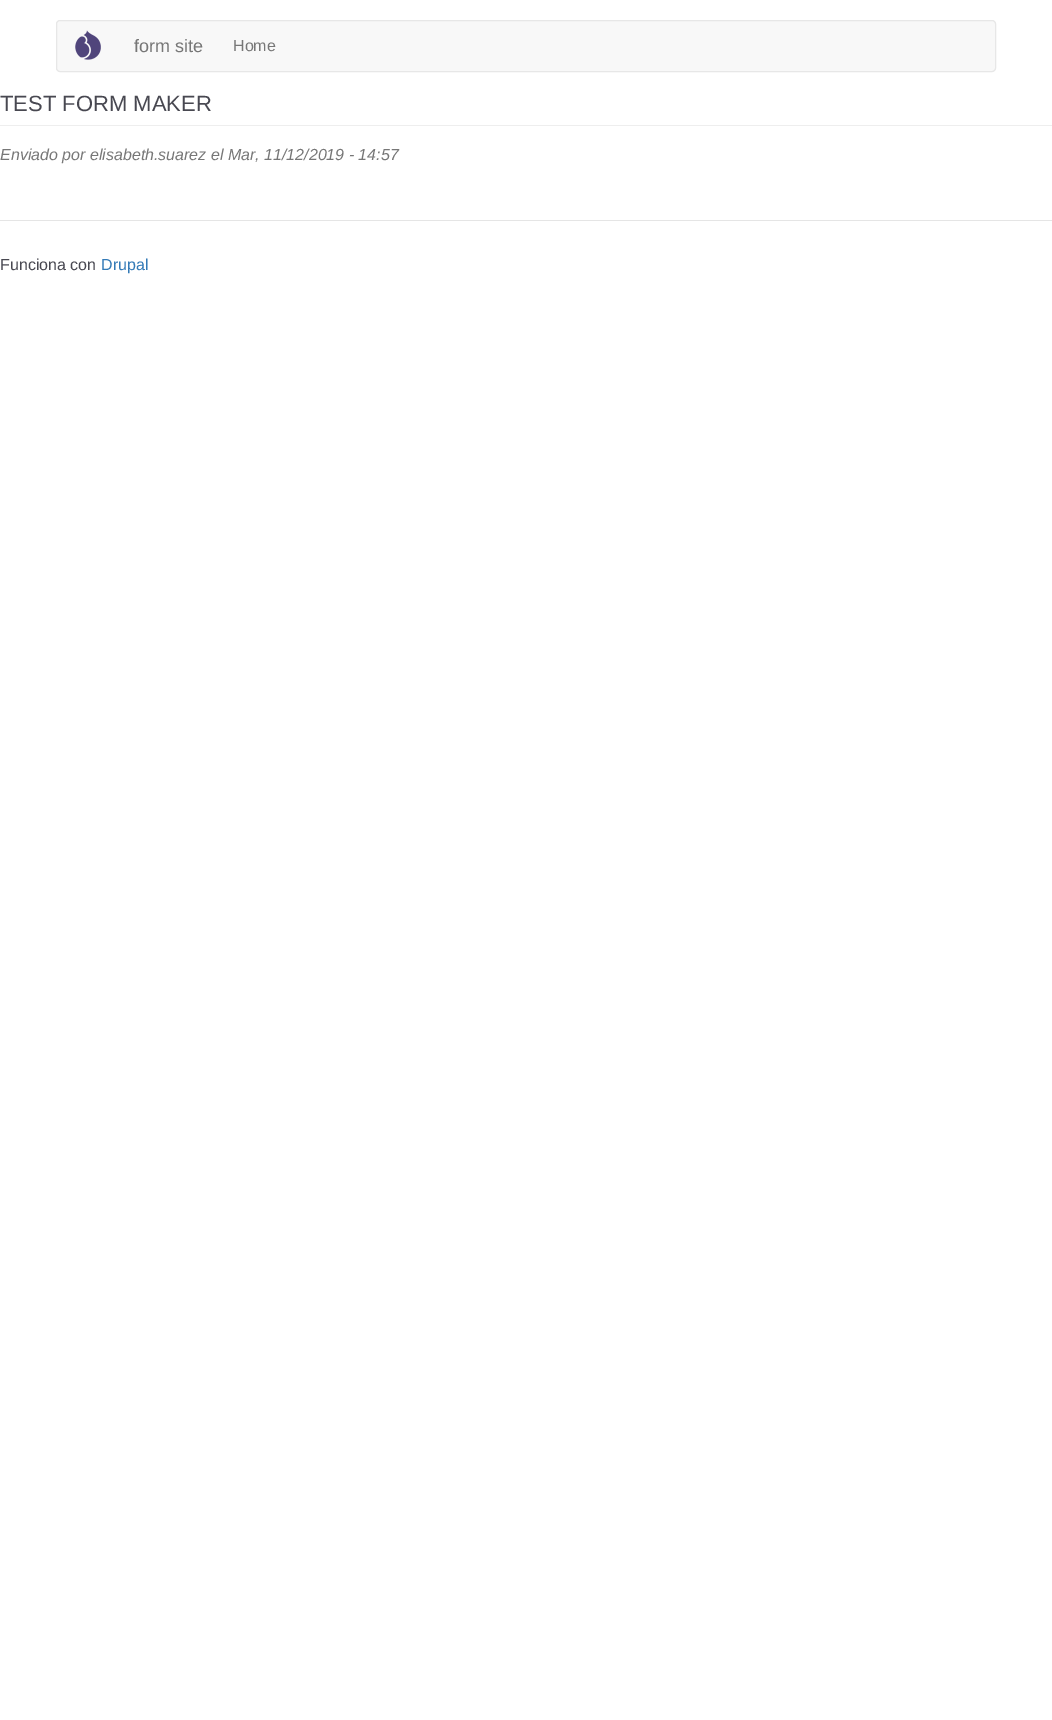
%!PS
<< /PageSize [1052 1720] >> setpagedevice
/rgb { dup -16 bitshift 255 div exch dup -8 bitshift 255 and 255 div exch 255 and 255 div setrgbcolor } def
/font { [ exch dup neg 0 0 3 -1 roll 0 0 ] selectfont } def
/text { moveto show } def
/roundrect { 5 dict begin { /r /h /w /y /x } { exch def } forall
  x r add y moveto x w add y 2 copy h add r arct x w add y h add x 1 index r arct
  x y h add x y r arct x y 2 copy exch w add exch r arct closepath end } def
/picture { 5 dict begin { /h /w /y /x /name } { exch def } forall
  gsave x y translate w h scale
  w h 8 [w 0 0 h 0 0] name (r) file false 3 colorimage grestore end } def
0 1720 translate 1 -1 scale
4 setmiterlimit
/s1 { /LiberationSans-Regular 18 font 16#777777 rgb } def
/s2 { /LiberationSans-Regular 16 font 16#777777 rgb } def
/s3 { /LiberationSans-Regular 22 font 16#484851 rgb } def
/s4 { /LiberationSans-Italic 16 font 16#777777 rgb } def
/s5 { /LiberationSans-Regular 16 font 16#484851 rgb } def
/s6 { /LiberationSans-Regular 16 font 16#337AB7 rgb } def
16#FFFFFF rgb
0 0 1052 1720 rectfill
16#F8F8F8 rgb
56.5 20.5 939 51 3.5 roundrect gsave fill grestore
16#E7E7E7 rgb
stroke
(pic1.raw) 75 30 26 30 picture
s1
(form site) 134 52 text
s2
(Home) 233 51 text
16#EEEEEE rgb
0 125 1052 1 rectfill
s3
(TEST FORM MAKER) 0 111 text
s4
(Enviado por elisabeth.suarez el Mar, 11/12/2019 - 14:57) 0 160 text
16#E5E5E5 rgb
0 220 1052 1 rectfill
s5
(Funciona con) 0 270 text
s6
(Drupal) 101 270 text
showpage
